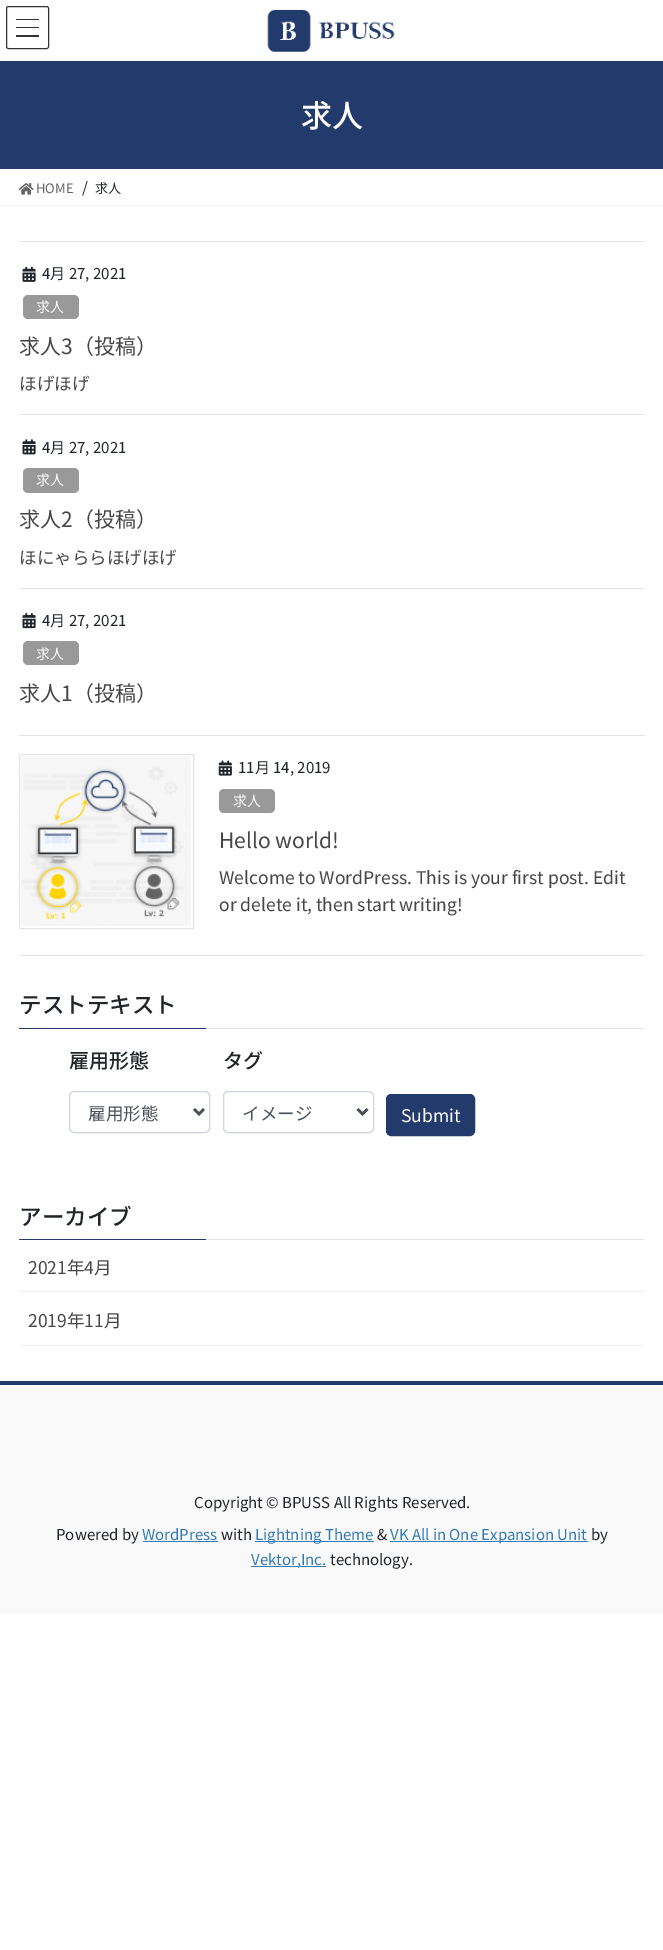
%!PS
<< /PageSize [663 1950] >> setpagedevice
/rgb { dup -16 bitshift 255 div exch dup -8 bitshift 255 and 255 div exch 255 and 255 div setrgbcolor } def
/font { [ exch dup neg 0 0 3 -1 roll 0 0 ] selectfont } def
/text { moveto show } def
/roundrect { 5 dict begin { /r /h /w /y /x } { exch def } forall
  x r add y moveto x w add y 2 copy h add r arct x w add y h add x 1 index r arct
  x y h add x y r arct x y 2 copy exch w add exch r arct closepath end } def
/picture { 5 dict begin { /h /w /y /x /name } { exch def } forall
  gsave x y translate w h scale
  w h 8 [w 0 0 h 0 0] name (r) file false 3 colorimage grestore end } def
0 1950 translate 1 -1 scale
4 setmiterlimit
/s1 { /NotoSansJP-Medium 31 font 16#FFFFFF rgb } def
/s2 { /NotoSansJP-Regular 13 font 16#666666 rgb } def
/s3 { /NotoSansJP-Regular 15 font 16#212529 rgb } def
/s4 { /NotoSansJP-Regular 13 font 16#212529 rgb } def
/s5 { /NotoSansJP-Regular 14 font 16#FFFFFF rgb } def
/s6 { /NotoSansJP-Regular 21 font 16#464646 rgb } def
/s7 { /NotoSansJP-Regular 17.5 font 16#464646 rgb } def
/s8 { /NotoSansJP-Medium 22.5 font 16#212529 rgb } def
/s9 { /NotoSansJP-Medium 20 font 16#212529 rgb } def
/s10 { /NotoSansJP-Regular 17.5 font 16#495057 rgb } def
/s11 { /NotoSansJP-Regular 17.5 font 16#FFFFFF rgb } def
/s12 { /NotoSansJP-Regular 15 font 16#337AB7 rgb } def
16#FFFFFF rgb
0 0 663 1950 rectfill
16#333333 rgb
16 19 23 1 rectfill
16 27 23 1 rectfill
16 35 23 2 rectfill
6.5 6.5 42 42 2 roundrect stroke
(pic1.raw) 267 9 128 43 picture
16#233B6C rgb
0 61 663 108 rectfill
s1
(求人) 301 127 text
16#F2F2F2 rgb
0 205 663 1 rectfill
(pic2.raw) 18 183 16 12 picture
s2
(HOME) 36 193 text
s3
(/) 82 193 text
s4
(求人) 95 193 text
16#E5E5E5 rgb
19 241 626 1 rectfill
19 414 626 1 rectfill
(pic3.raw) 22 266 14 16 picture
s3
(4月 27, 2021) 42 279 text
16#999999 rgb
23 295 56 24 5 roundrect fill
s5
(求人) 36 312 text
s6
(求人3（投稿）) 19 354 text
s7
(ほげほげ) 19 390 text
16#E5E5E5 rgb
19 588 626 1 rectfill
(pic4.raw) 22 439 14 16 picture
s3
(4月 27, 2021) 42 453 text
16#999999 rgb
23 468 56 25 5 roundrect fill
s5
(求人) 36 485 text
s6
(求人2（投稿）) 19 527 text
s7
(ほにゃららほげほげ) 19 564 text
16#E5E5E5 rgb
19 735 626 1 rectfill
(pic5.raw) 22 613 14 16 picture
s3
(4月 27, 2021) 42 626 text
16#999999 rgb
23 641 56 24 5 roundrect fill
s5
(求人) 36 659 text
s6
(求人1（投稿）) 19 701 text
16#E5E5E5 rgb
19 955 626 1 rectfill
19.5 754.5 174 174 rectstroke
(pic6.raw) 21 756 170 170 picture
(pic7.raw) 218 760 14 16 picture
s3
(11月 14, 2019) 238 773 text
16#999999 rgb
219 789 56 24 5 roundrect fill
s5
(求人) 233 806 text
s6
(Hello world!) 219 848 text
s7
(Welcome to WordPress. This is your first post. Edit) 219 884 text
(or delete it, then start writing!) 219 911 text
16#E6E6E6 rgb
206 1028 439 1 rectfill
s8
(テストテキスト) 19 1013 text
16#233B6C rgb
19 1028 187 1 rectfill
s9
(雇用形態) 69 1068 text
16#CED4DA rgb
69.5 1091.5 140 41 4.5 roundrect stroke
16#495057 rgb
2.5 setlinewidth
194 1109 moveto 199 1114 lineto 204 1109 lineto stroke
s10
(雇用形態) 88 1120 text
s9
(タグ) 223 1068 text
16#CED4DA rgb
1 setlinewidth
223.5 1091.5 150 41 4.5 roundrect stroke
16#495057 rgb
2.5 setlinewidth
357.5 1109 moveto 362.5 1114 lineto 367.5 1109 lineto stroke
s10
(イメージ) 242 1120 text
16#233B6C rgb
386.5 1094.5 88 41 4.5 roundrect gsave fill grestore
1 setlinewidth
stroke
s11
(Submit) 401 1122 text
16#E6E6E6 rgb
206 1239 439 1 rectfill
s8
(アーカイブ) 19 1225 text
16#233B6C rgb
19 1239 187 1 rectfill
16#F2F2F2 rgb
19 1291 626 1 rectfill
s7
(2021年4月) 28 1274 text
16#F2F2F2 rgb
19 1345 626 1 rectfill
s7
(2019年11月) 28 1327 text
16#F9F9F9 rgb
0 1385 663 229 rectfill
16#233B6C rgb
0 1381 663 4 rectfill
s3
(Copyright © BPUSS All Rights Reserved.) 194 1508 text
(Powered by) 56 1540 text
s12
(WordPress) 142 1540 text
143 1541 75 1 rectfill
s3
(with) 221 1540 text
16#337AB7 rgb
255 1541 119 1 rectfill
(Lightning Theme) 255 1540 text
s3
(&) 377 1540 text
16#337AB7 rgb
390 1541 198 1 rectfill
(VK All in One Expansion Unit) 390 1540 text
s3
(by) 591 1540 text
16#337AB7 rgb
251 1566 75 1 rectfill
(Vektor,Inc.) 251 1565 text
s3
(technology.) 330 1565 text
showpage
